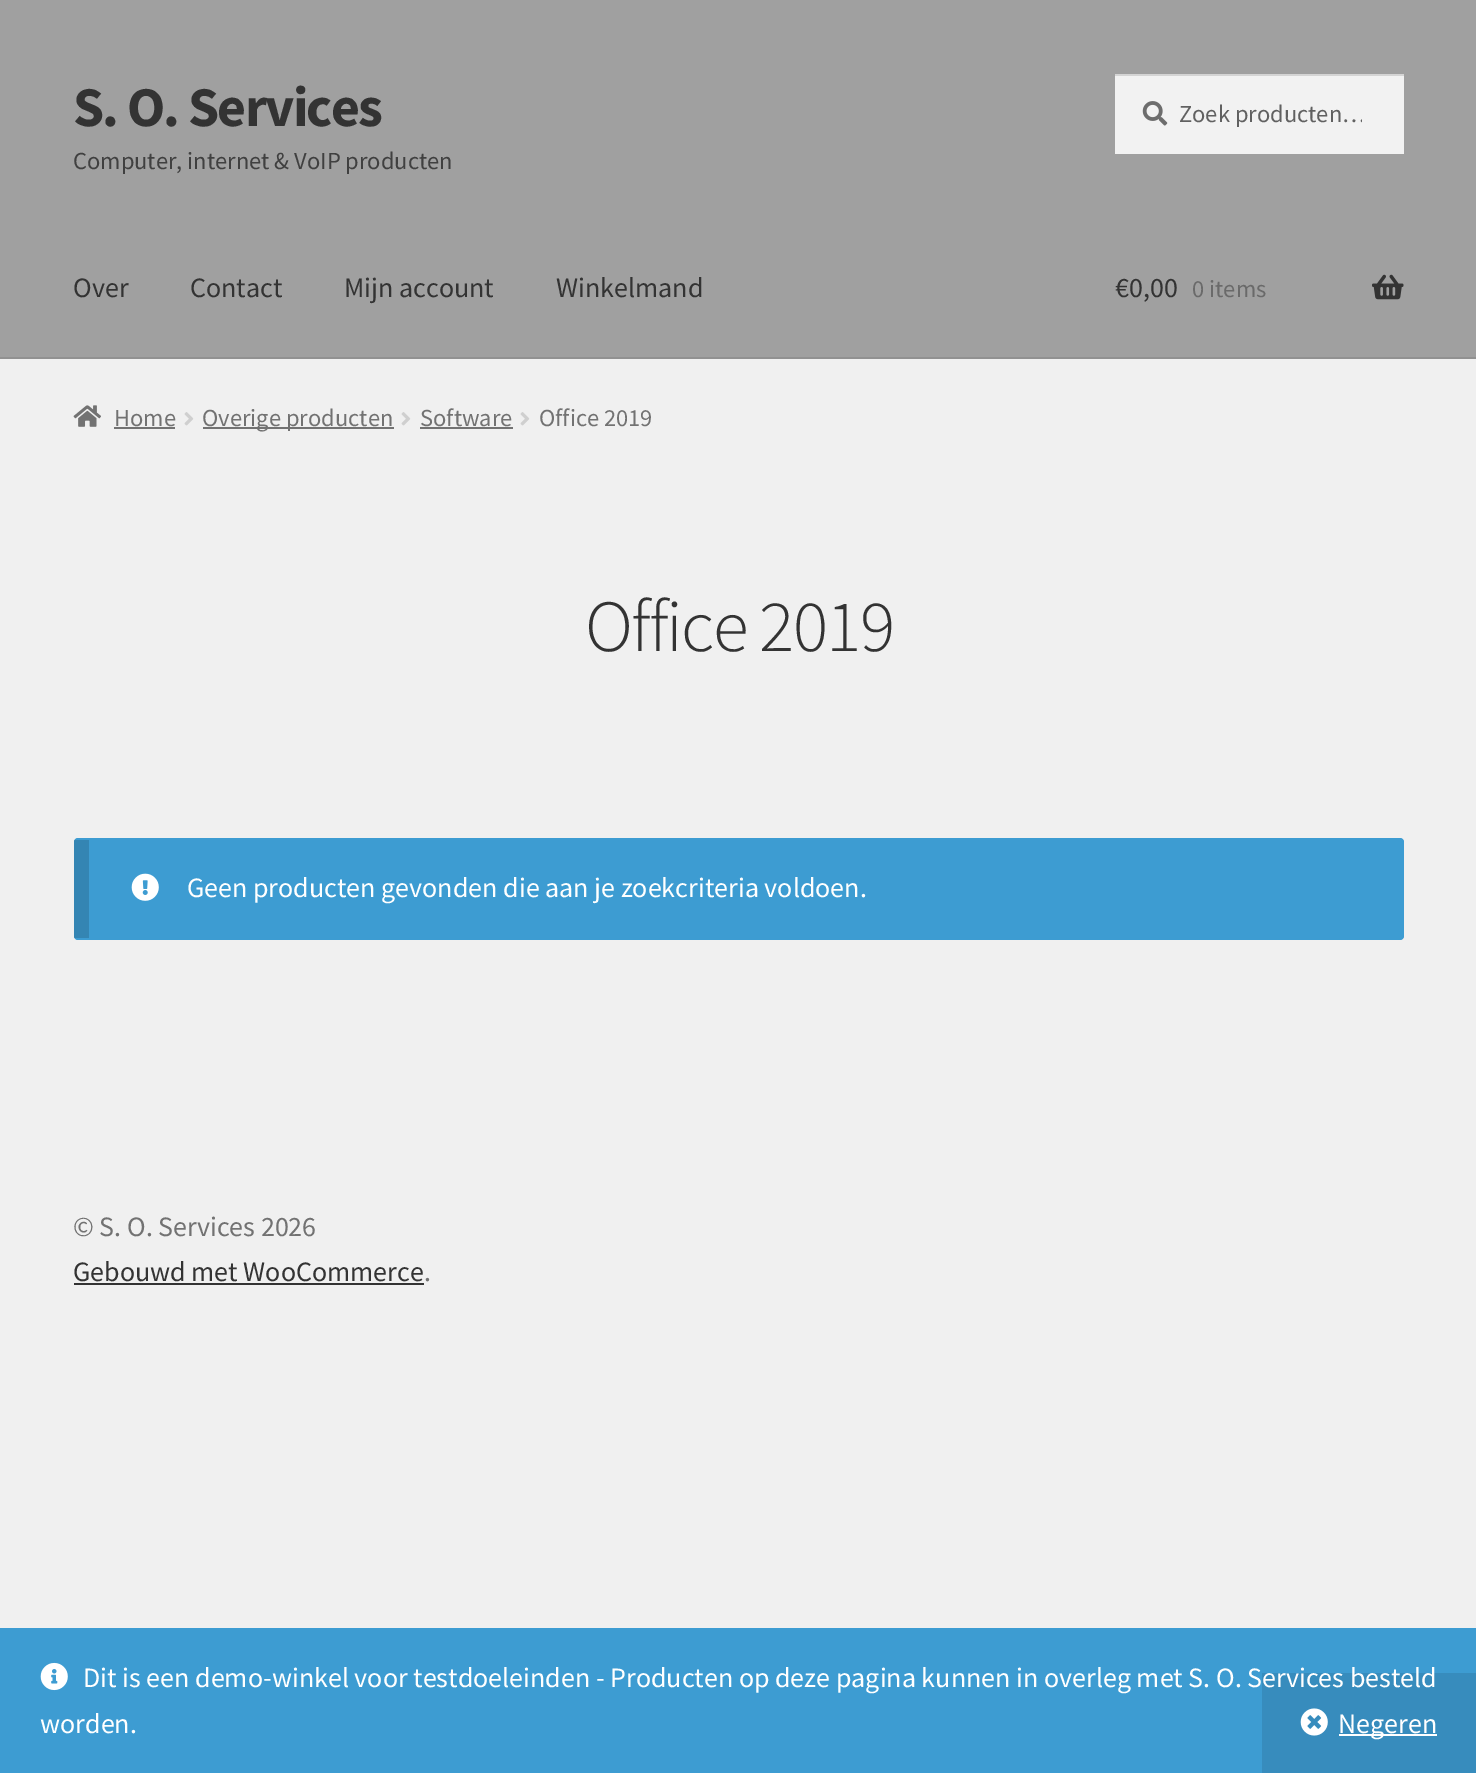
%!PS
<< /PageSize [1476 1773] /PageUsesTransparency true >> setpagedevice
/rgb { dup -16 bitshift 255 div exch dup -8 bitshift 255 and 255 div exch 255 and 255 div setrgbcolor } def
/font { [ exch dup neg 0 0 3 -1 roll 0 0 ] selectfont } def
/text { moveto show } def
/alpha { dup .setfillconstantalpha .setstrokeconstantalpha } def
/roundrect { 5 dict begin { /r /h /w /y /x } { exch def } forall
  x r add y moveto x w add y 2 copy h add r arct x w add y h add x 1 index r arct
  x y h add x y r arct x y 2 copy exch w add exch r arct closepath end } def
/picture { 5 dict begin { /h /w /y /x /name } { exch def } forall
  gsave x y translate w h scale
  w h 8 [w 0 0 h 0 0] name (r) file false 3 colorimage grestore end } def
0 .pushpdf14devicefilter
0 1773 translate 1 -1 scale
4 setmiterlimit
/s1 { /SourceSansPro-Regular 24.5 font 16#404040 rgb } def
/s2 { /SourceSansPro-Regular 24.5 font 16#616161 rgb } def
/s3 { /SourceSansPro-Regular 28 font 16#333333 rgb } def
/s4 { /SourceSansPro-Regular 24.5 font 16#6A6A6A rgb } def
/s5 { /SourceSansPro-Regular 24.5 font 16#727272 rgb } def
/s6 { /SourceSansPro-Regular 28 font 16#FFFFFF rgb } def
/s7 { /SourceSansPro-Regular 28 font 16#727272 rgb } def
16#F0F0F0 rgb
0 0 1476 1773 rectfill
16#A0A0A0 rgb
0 0 1476 357 rectfill
16#919191 rgb
0 357 1476 2 rectfill
/SourceSansPro-Bold 56 font
16#333333 rgb
73 126 moveto -1.75 0 (S. O. Services) ashow
s1
(Computer, internet & VoIP producten) 73 169 text
16#F2F2F2 rgb
1115 76 289 78 rectfill
(pic1.raw) 1142 101 26 25 picture
16#D4D4D4 rgb
1115 74 289 2 rectfill
gsave
1180 98 182 32 rectclip
s2
(Zoek producten…) 1179 122 text
grestore
s3
(Over) 73 297 text
(Contact) 190 297 text
(Mijn account) 344 297 text
(Winkelmand) 556 297 text
(€0,00) 1115 297 text
s4
(0 items) 1192 297 text
(pic2.raw) 1372 274 32 26 picture
(pic3.raw) 73 405 28 22 picture
s5
(Home) 114 426 text
114 427 61 2 rectfill
(pic4.raw) 184 412 10 14 picture
203 427 191 2 rectfill
(Overige producten) 202 426 text
(pic4.raw) 401 412 10 14 picture
(Software) 420 426 text
420 427 93 2 rectfill
(pic4.raw) 520 412 10 14 picture
(Office 2019) 539 426 text
/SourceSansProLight-Light 73.5 font
16#333333 rgb
585 651 moveto -1.75 0 (Office 2019) ashow
16#3D9CD2 rgb
74 838 1330 102 4 roundrect fill
0.15 alpha
16#000000 rgb
74 840 15 98 rectfill
1 alpha
(pic5.raw) 131 873 28 28 picture
s6
(Geen producten gevonden die aan je zoekcriteria voldoen.) 187 897 text
s7
(© S. O. Services 2026) 73 1236 text
s3
(Gebouwd met WooCommerce) 73 1281 text
74 1283 350 2 rectfill
s7
(.) 424 1281 text
16#3D9CD2 rgb
0 1628 1476 145 rectfill
(pic6.raw) 40 1662 28 29 picture
16#378CBD rgb
1262 1673 214 100 rectfill
s6
(Dit is een demo-winkel voor testdoeleinden - Producten op deze pagina kunnen in overleg met S. O. Services besteld) 83 1687 text
(worden.) 40 1733 text
(pic7.raw) 1300 1708 28 28 picture
1339 1734 98 2 rectfill
(Negeren) 1338 1733 text
.poppdf14devicefilter showpage
